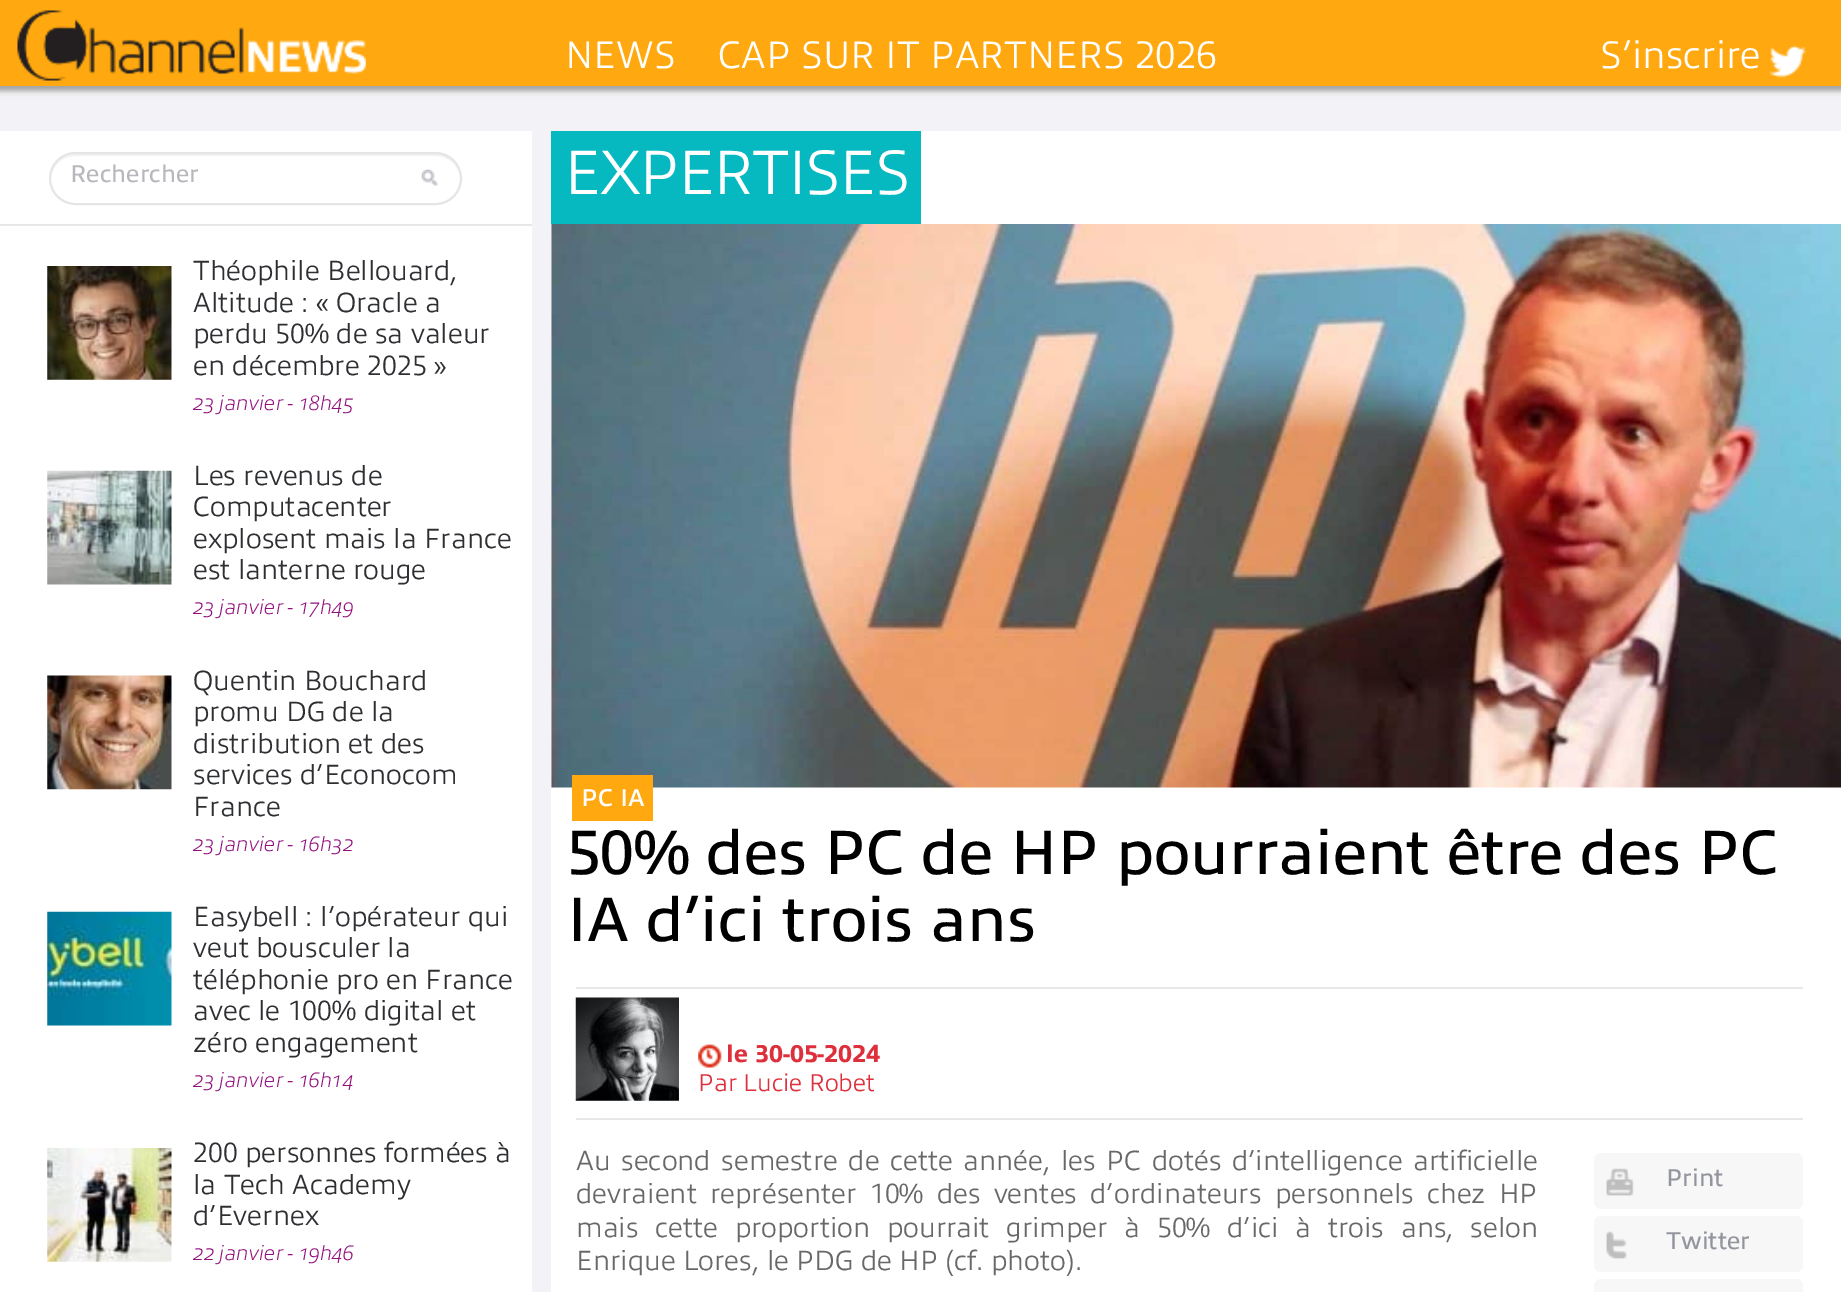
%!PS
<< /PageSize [1841 1292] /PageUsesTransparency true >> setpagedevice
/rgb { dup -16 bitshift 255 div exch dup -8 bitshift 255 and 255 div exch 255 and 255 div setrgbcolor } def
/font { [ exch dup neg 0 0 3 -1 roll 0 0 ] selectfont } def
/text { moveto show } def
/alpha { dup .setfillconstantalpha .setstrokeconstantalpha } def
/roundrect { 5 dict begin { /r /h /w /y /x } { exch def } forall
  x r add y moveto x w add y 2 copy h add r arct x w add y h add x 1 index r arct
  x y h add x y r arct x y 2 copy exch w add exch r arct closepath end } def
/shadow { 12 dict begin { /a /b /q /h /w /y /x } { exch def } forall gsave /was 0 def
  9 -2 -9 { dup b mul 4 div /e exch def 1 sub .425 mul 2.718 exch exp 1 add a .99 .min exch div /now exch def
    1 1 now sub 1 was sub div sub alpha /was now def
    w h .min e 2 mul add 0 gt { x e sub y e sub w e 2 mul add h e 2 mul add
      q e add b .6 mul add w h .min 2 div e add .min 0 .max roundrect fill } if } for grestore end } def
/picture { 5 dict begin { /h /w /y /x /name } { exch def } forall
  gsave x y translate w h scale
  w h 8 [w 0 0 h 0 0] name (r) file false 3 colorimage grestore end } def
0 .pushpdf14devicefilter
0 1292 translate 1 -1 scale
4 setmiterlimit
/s1 { /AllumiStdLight-Light 38.5 font 16#FFFFFF rgb } def
/s2 { /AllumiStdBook-Regular 24.5 font 16#B7B8BE rgb } def
/s3 { /AllumiStdLight-Light 28 font 16#2E2F32 rgb } def
/s4 { /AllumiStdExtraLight-ExtraLightItalic 21 font 16#93117E rgb } def
/s5 { /AllumiStdLight-Bold 24.5 font 16#FFFFFF rgb } def
/s6 { /AllumiStdBook-Regular 63 font 16#000000 rgb } def
/s7 { /AllumiStdBook-ExtraBold 24.5 font 16#DE303C rgb } def
/s8 { /AllumiStdLight-Light 24.5 font 16#DE303C rgb } def
/s9 { /AllumiStdLight-Light 28 font 16#686868 rgb } def
/s10 { /AllumiStdBook-Regular 24.5 font 16#92959D rgb } def
16#F3F2F6 rgb
0 0 1841 1292 rectfill
16#A3A3A4 rgb
-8 -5 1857 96 0 2.5 1 shadow
16#FFA80F rgb
0 0 1841 86 rectfill
(pic1.raw) 17 10 349 71 picture
s1
(NEWS) 565 68 text
(CAP SUR IT PARTNERS 2026) 718 68 text
(S’inscrire) 1600 68 text
(pic2.raw) 1769 45 37 33 picture
0 131 532 1161 rectfill
16#E7E7E9 rgb
0 224 532 2 rectfill
16#F2F2F2 rgb
75 156 moveto 436 156 lineto 449 156 460 167 460 179 curveto 460 166 449 154 436 154 curveto 76 154 lineto 62 154 51 166 51 179 curveto 51 167 62 156 75 156 curveto closepath fill
16#E5E5E5 rgb
2 setlinewidth
50 153 411 51 25.5 roundrect stroke
s2
(Rechercher) 70 182 text
(pic3.raw) 421 169 17 17 picture
(pic4.raw) 47 266 125 114 picture
s3
(Théophile Bellouard,) 193 280 text
(Altitude : « Oracle a) 193 312 text
(perdu 50% de sa valeur) 193 343 text
(en décembre 2025 ») 193 375 text
s4
(23 janvier - 18h45) 193 410 text
(pic5.raw) 47 470 125 115 picture
s3
(Les revenus de) 193 485 text
(Computacenter) 193 516 text
(explosent mais la France) 193 548 text
(est lanterne rouge) 193 579 text
s4
(23 janvier - 17h49) 193 614 text
(pic6.raw) 47 675 125 115 picture
s3
(Quentin Bouchard) 193 690 text
(promu DG de la) 193 721 text
(distribution et des) 193 753 text
(services d’Econocom) 193 784 text
(France) 193 816 text
s4
(23 janvier - 16h32) 193 851 text
(pic7.raw) 47 911 125 115 picture
s3
(Easybell : l’opérateur qui) 193 926 text
(veut bousculer la) 193 957 text
(téléphonie pro en France) 193 989 text
(avec le 100% digital et) 193 1020 text
(zéro engagement) 193 1052 text
s4
(23 janvier - 16h14) 193 1087 text
(pic8.raw) 47 1148 125 114 picture
s3
(200 personnes formées à) 193 1162 text
(la Tech Academy) 193 1194 text
(d’Evernex) 193 1225 text
s4
(22 janvier - 19h46) 193 1260 text
16#FFFFFF rgb
551 131 1290 1161 rectfill
16#06B9C0 rgb
551 131 370 93 rectfill
/AllumiStdLight-Light 63 font
16#FFFFFF rgb
564 194 moveto -1.75 0 (EXPERTISES) ashow
(pic9.raw) 551 224 1290 564 picture
16#FFA80F rgb
572 775 81 46 rectfill
s5
(PC IA) 581 806 text
s6
(50% des PC de HP pourraient être des PC) 567 874 text
(IA d’ici trois ans) 567 941 text
16#E7E7E9 rgb
576 987 1227 2 rectfill
576 1118 1227 2 rectfill
(pic10.raw) 575 997 104 104 picture
(pic11.raw) 698 1044 24 24 picture
s7
(le 30-05-2024) 726 1062 text
s8
(Par Lucie Robet) 698 1091 text
/AllumiStdLight-Light 28 font
16#686868 rgb
576 1170 moveto 3 0 32 (Au second semestre de cette année, les PC dotés d’intelligence artificielle) widthshow
576 1203 moveto 5.75 0 32 (devraient représenter 10% des ventes d’ordinateurs personnels chez HP) widthshow
576 1237 moveto 9.25 0 32 (mais cette proportion pourrait grimper à 50% d’ici à trois ans, selon) widthshow
(Enrique Lores, le PDG de HP \(cf. photo\).) 576 1270 text
16#F7F7F7 rgb
1594 1153 209 56 7 roundrect fill
(pic12.raw) 1606 1168 28 28 picture
s10
(Print) 1666 1186 text
16#F7F7F7 rgb
1594 1216 209 56 7 roundrect fill
(pic13.raw) 1606 1231 22 28 picture
s10
(Twitter) 1666 1249 text
16#F7F7F7 rgb
1594 1279 209 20 7 roundrect fill
.poppdf14devicefilter showpage
